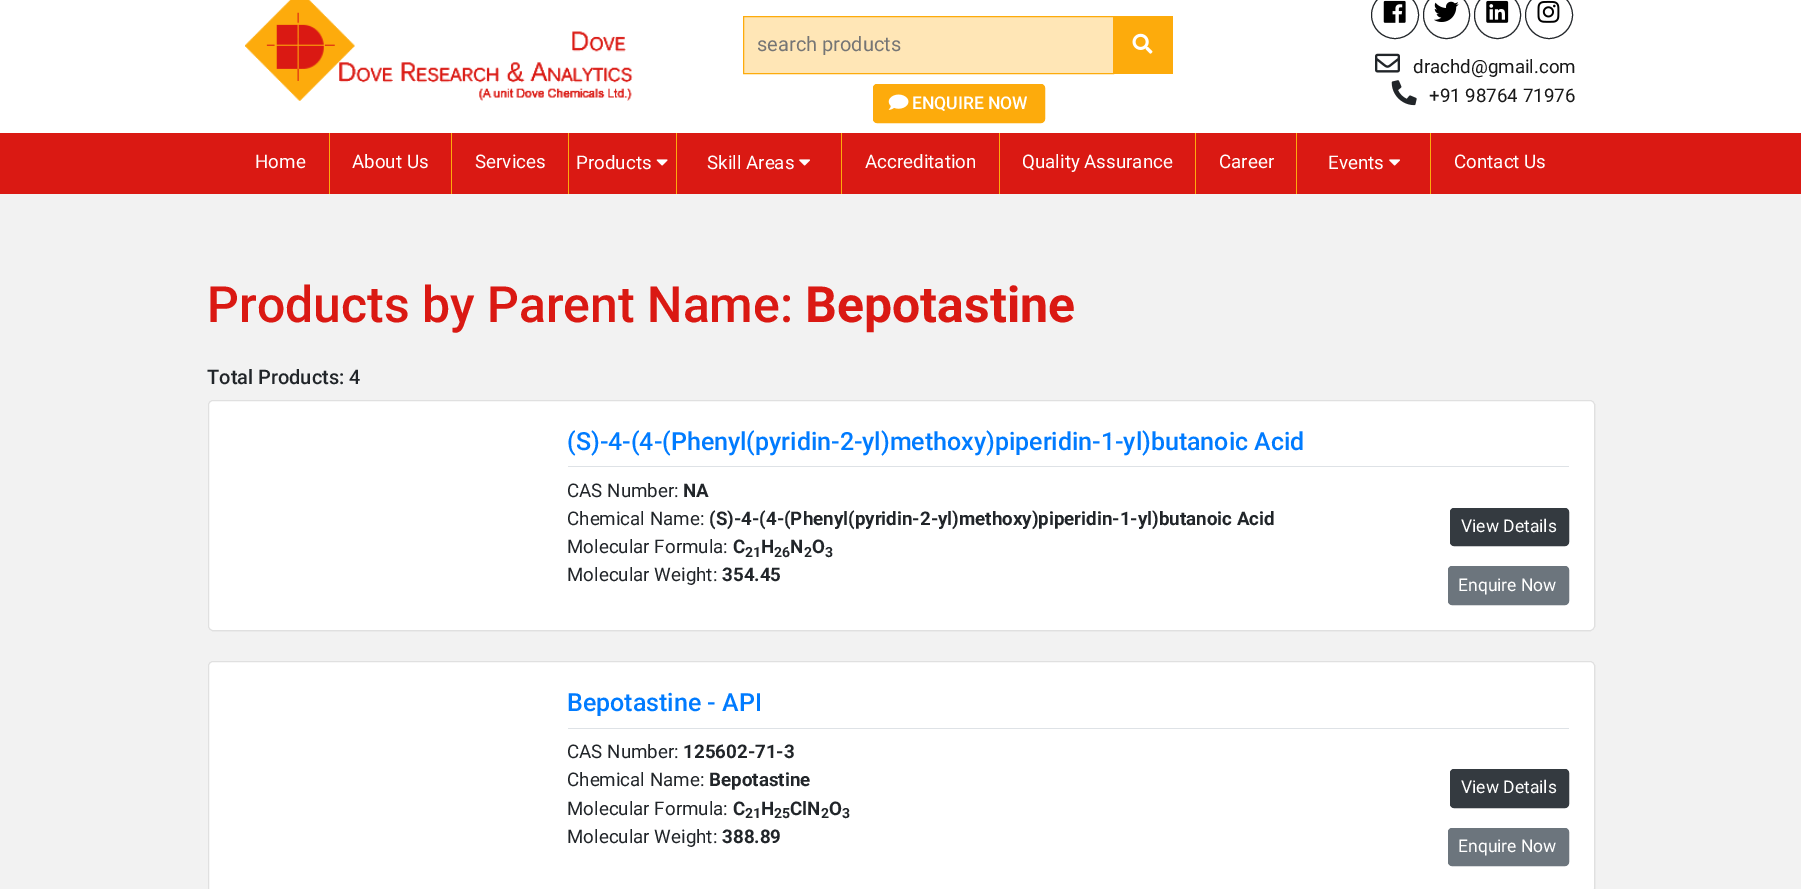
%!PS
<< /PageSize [1801 889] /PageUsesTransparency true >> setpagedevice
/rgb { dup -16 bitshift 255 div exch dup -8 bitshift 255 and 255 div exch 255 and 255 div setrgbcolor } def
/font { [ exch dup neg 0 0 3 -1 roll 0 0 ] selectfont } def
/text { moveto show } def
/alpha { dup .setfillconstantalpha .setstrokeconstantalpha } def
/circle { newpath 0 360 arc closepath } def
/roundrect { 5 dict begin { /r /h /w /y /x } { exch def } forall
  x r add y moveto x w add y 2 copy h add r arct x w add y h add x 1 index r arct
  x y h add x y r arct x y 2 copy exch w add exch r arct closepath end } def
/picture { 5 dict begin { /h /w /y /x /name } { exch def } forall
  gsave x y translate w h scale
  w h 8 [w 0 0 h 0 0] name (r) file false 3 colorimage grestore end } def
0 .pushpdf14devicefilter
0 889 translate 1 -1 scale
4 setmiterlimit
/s1 { /Roboto-Regular 20 font 16#757575 rgb } def
/s2 { /Roboto-Medium 17.5 font 16#FFFFFF rgb } def
/s3 { /Roboto-Regular 18.75 font 16#181818 rgb } def
/s4 { /Roboto-Regular 18.75 font 16#FFFFFF rgb } def
/s5 { /Roboto-Medium 50 font 16#DA1913 rgb } def
/s6 { /Roboto-Bold 50 font 16#DA1913 rgb } def
/s7 { /Roboto-Medium 20 font 16#212529 rgb } def
/s8 { /Roboto-Medium 25 font 16#007BFF rgb } def
/s9 { /Roboto-Regular 18.75 font 16#212529 rgb } def
/s10 { /Roboto-Bold 18.75 font 16#212529 rgb } def
/s11 { /Roboto-Bold 14 font 16#212529 rgb } def
/s12 { /Roboto-Regular 17.5 font 16#FFFFFF rgb } def
16#FFFFFF rgb
0 0 1801 889 rectfill
(pic1.raw) 245 0 388 101 picture
16#FFE6B6 rgb
743.5 16.5 moveto 1113.5 16.5 lineto 1113.5 73.5 lineto 743.5 73.5 lineto closepath gsave fill grestore
16#FDAB0C rgb
stroke
s1
(search products) 757 51 text
16#FDAB0C rgb
1114 16 59 58 rectfill
(pic2.raw) 1132 33 21 21 picture
873.5 84.5 171 38 3.5 roundrect gsave fill grestore
stroke
(pic3.raw) 888 94 21 16 picture
s2
(ENQUIRE NOW) 912 109 text
16#212529 rgb
1395 15 23.5 circle stroke
(pic4.raw) 1383 0 23 23 picture
1423.5 -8.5 46 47 23 roundrect stroke
(pic5.raw) 1434 1 25 21 picture
1474.5 -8.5 46 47 23 roundrect stroke
(pic6.raw) 1486 0 23 23 picture
1549 15 23.5 circle stroke
(pic7.raw) 1537 0 23 23 picture
(pic8.raw) 1375 53 25 20 picture
s3
(drachd@gmail.com) 1413 73 text
(pic9.raw) 1391 80 26 26 picture
(+91 98764 71976) 1429 102 text
16#DA1913 rgb
0 133 1801 61 rectfill
s4
(Home) 255 168 text
16#FDAB0C rgb
329 133 1 61 rectfill
s4
(About Us) 352 168 text
16#FDAB0C rgb
451 133 1 61 rectfill
s4
(Services) 475 168 text
16#FDAB0C rgb
568 133 1 61 rectfill
s4
(Products) 576 169 text
(pic10.raw) 656 159 12 7 picture
16#FDAB0C rgb
676 133 1 61 rectfill
s4
(Skill Areas) 707 169 text
(pic11.raw) 799 159 11 7 picture
16#FDAB0C rgb
841 133 1 61 rectfill
s4
(Accreditation) 865 168 text
16#FDAB0C rgb
999 133 1 61 rectfill
s4
(Quality Assurance) 1022 168 text
16#FDAB0C rgb
1195 133 1 61 rectfill
s4
(Career) 1219 168 text
16#FDAB0C rgb
1296 133 1 61 rectfill
s4
(Events) 1328 169 text
(pic11.raw) 1389 159 11 7 picture
16#FDAB0C rgb
1430 133 1 61 rectfill
s4
(Contact Us) 1454 168 text
16#F2F2F2 rgb
0 194 1801 695 rectfill
s5
(Products by Parent Name:) 207 322 text
s6
(Bepotastine) 805 322 text
s7
(Total Products: 4) 207 384 text
16#FFFFFF rgb
208 400 1387 231 5 roundrect fill
0.12 alpha
16#000000 rgb
208.5 400.5 1386 230 4.5 roundrect stroke
1 alpha
s8
(\(S\)-4-\(4-\(Phenyl\(pyridin-2-yl\)methoxy\)piperidin-1-yl\)butanoic Acid) 567 450 text
16#DEE2E6 rgb
568 466 1001 1 rectfill
s9
(CAS Number:) 567 497 text
s10
(NA) 683 497 text
s9
(Chemical Name:) 567 525 text
s10
(\(S\)-4-\(4-\(Phenyl\(pyridin-2-yl\)methoxy\)piperidin-1-yl\)butanoic Acid) 709 525 text
s9
(Molecular Formula:) 567 553 text
s10
(C) 733 553 text
s11
(21) 745 557 text
s10
(H) 761 553 text
s11
(26) 774 557 text
s10
(N) 790 553 text
s11
(2) 804 557 text
s10
(O) 812 553 text
s11
(3) 825 557 text
s9
(Molecular Weight:) 567 581 text
s10
(354.45) 722 581 text
16#343A40 rgb
1450.5 508.5 118 37 3.5 roundrect gsave fill grestore
stroke
s12
(View Details) 1461 532 text
16#6C757D rgb
1448.5 566.5 120 38 3.5 roundrect gsave fill grestore
stroke
s12
(Enquire Now) 1458 591 text
208 661 1387 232 5 roundrect fill
0.12 alpha
16#000000 rgb
208.5 661.5 1386 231 4.5 roundrect stroke
1 alpha
s8
(Bepotastine - API) 567 711 text
16#DEE2E6 rgb
568 728 1001 1 rectfill
s9
(CAS Number:) 567 758 text
s10
(125602-71-3) 683 758 text
s9
(Chemical Name:) 567 786 text
s10
(Bepotastine) 709 786 text
s9
(Molecular Formula:) 567 815 text
s10
(C) 733 815 text
s11
(21) 745 818 text
s10
(H) 761 815 text
s11
(25) 774 818 text
s10
(ClN) 790 815 text
s11
(2) 821 818 text
s10
(O) 829 815 text
s11
(3) 842 818 text
s9
(Molecular Weight:) 567 843 text
s10
(388.89) 722 843 text
16#343A40 rgb
1450.5 769.5 118 38 3.5 roundrect gsave fill grestore
stroke
s12
(View Details) 1461 793 text
16#6C757D rgb
1448.5 828.5 120 37 3.5 roundrect gsave fill grestore
stroke
s12
(Enquire Now) 1458 852 text
.poppdf14devicefilter showpage
